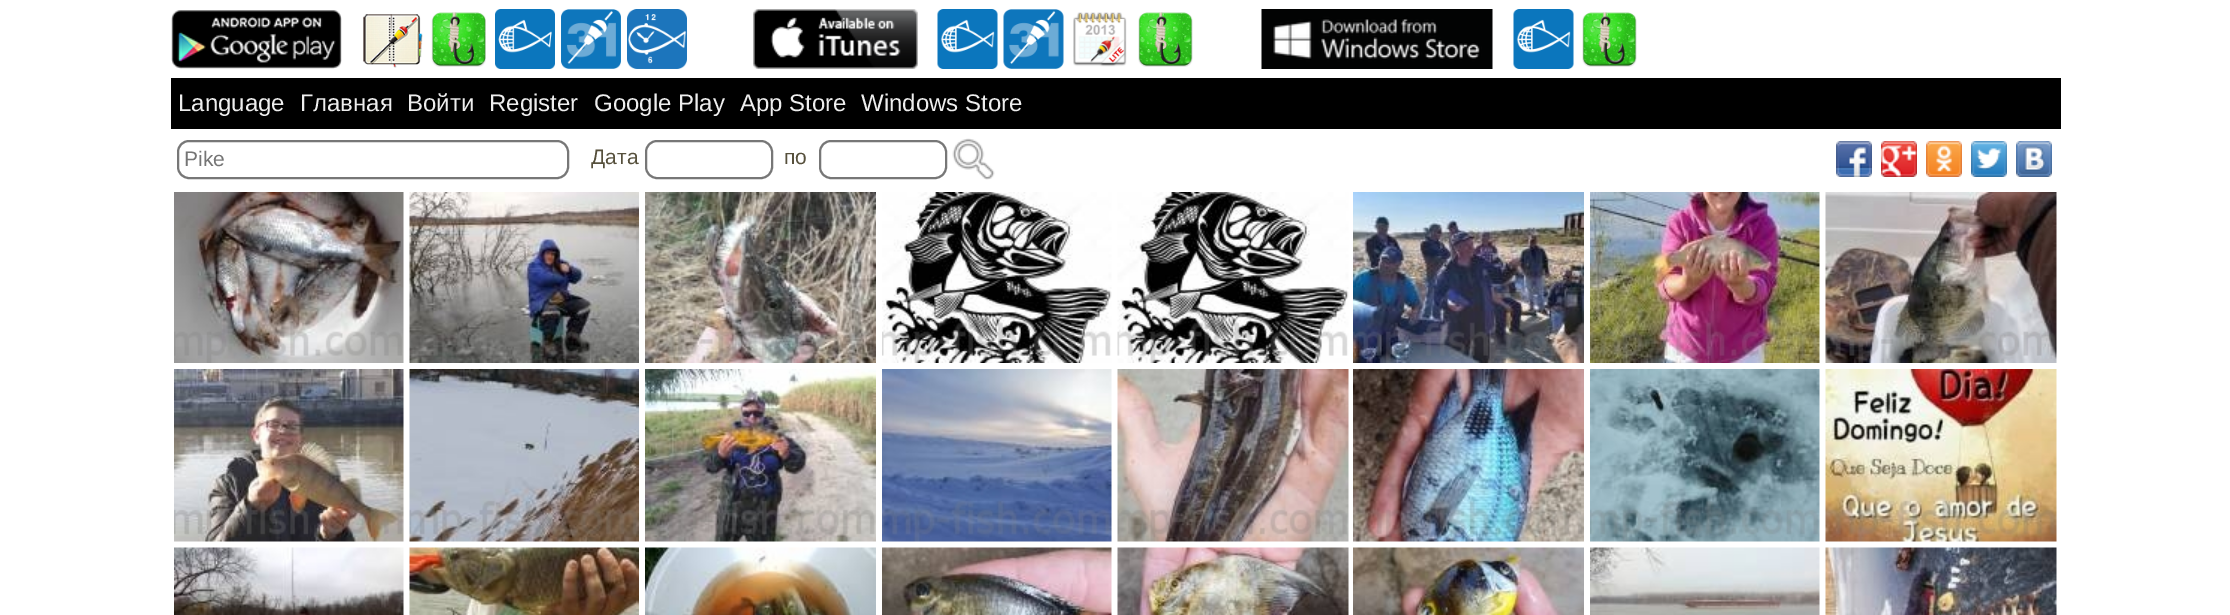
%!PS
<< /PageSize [2230 615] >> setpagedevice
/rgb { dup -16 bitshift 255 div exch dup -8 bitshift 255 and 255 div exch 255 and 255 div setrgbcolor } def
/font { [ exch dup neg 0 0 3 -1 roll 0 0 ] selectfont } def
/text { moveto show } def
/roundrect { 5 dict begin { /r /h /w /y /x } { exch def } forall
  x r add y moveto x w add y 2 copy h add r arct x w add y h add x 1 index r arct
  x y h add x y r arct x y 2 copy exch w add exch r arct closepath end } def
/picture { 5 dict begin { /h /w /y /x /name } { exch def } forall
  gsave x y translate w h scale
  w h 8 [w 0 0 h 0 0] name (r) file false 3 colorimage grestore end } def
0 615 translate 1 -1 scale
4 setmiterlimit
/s1 { /LiberationSans-Regular 24 font 16#EEEEEE rgb } def
/s2 { /LiberationSans-Regular 21 font 16#757575 rgb } def
/s3 { /LiberationSans-Regular 21 font 16#56503C rgb } def
16#FFFFFF rgb
0 0 2230 615 rectfill
(pic1.raw) 171 10 171 59 picture
(pic2.raw) 363 14 60 54 picture
(pic3.raw) 431 12 55 55 picture
(pic4.raw) 495 9 60 60 picture
(pic5.raw) 561 9 60 60 picture
(pic6.raw) 627 9 60 60 picture
(pic7.raw) 753 9 165 60 picture
(pic8.raw) 937 9 61 60 picture
(pic9.raw) 1003 9 61 60 picture
(pic10.raw) 1073 12 54 55 picture
(pic11.raw) 1138 12 55 55 picture
(pic12.raw) 1261 9 232 60 picture
(pic13.raw) 1513 9 61 60 picture
(pic11.raw) 1582 12 55 55 picture
16#000000 rgb
171 78 1890 51 rectfill
s1
(Language) 178 111 text
(Главная) 300 111 text
(Войти) 407 111 text
(Register) 489 111 text
(Google Play) 594 111 text
(App Store) 740 111 text
(Windows Store) 861 111 text
16#777777 rgb
2 setlinewidth
178 141 390 37 11 roundrect stroke
s2
(Pike) 184 166 text
s3
(Дата) 591 164 text
16#777777 rgb
646 141 126 37 11 roundrect stroke
s3
(по) 784 164 text
16#777777 rgb
820 141 126 37 11 roundrect stroke
(pic14.raw) 952 138 43 42 picture
(pic15.raw) 1836 141 36 36 picture
(pic16.raw) 1881 141 36 36 picture
(pic17.raw) 1926 141 36 36 picture
(pic18.raw) 1971 141 36 36 picture
(pic19.raw) 2016 141 36 36 picture
(pic20.raw) 174 192 230 171 picture
(pic21.raw) 409 192 230 171 picture
(pic22.raw) 645 192 231 171 picture
(pic23.raw) 882 192 230 171 picture
(pic24.raw) 1117 192 232 171 picture
(pic25.raw) 1353 192 231 171 picture
(pic26.raw) 1590 192 230 171 picture
(pic27.raw) 1825 192 232 171 picture
(pic28.raw) 174 369 230 173 picture
(pic29.raw) 409 369 230 173 picture
(pic30.raw) 645 369 231 173 picture
(pic31.raw) 882 369 230 173 picture
(pic32.raw) 1117 369 232 173 picture
(pic33.raw) 1353 369 231 173 picture
(pic34.raw) 1590 369 230 173 picture
(pic35.raw) 1825 369 232 173 picture
(pic36.raw) 174 547 230 68 picture
(pic37.raw) 409 547 230 68 picture
(pic38.raw) 645 547 231 68 picture
(pic39.raw) 882 547 230 68 picture
(pic40.raw) 1117 547 232 68 picture
(pic41.raw) 1353 547 231 68 picture
(pic42.raw) 1590 547 230 68 picture
(pic43.raw) 1825 547 232 68 picture
showpage
